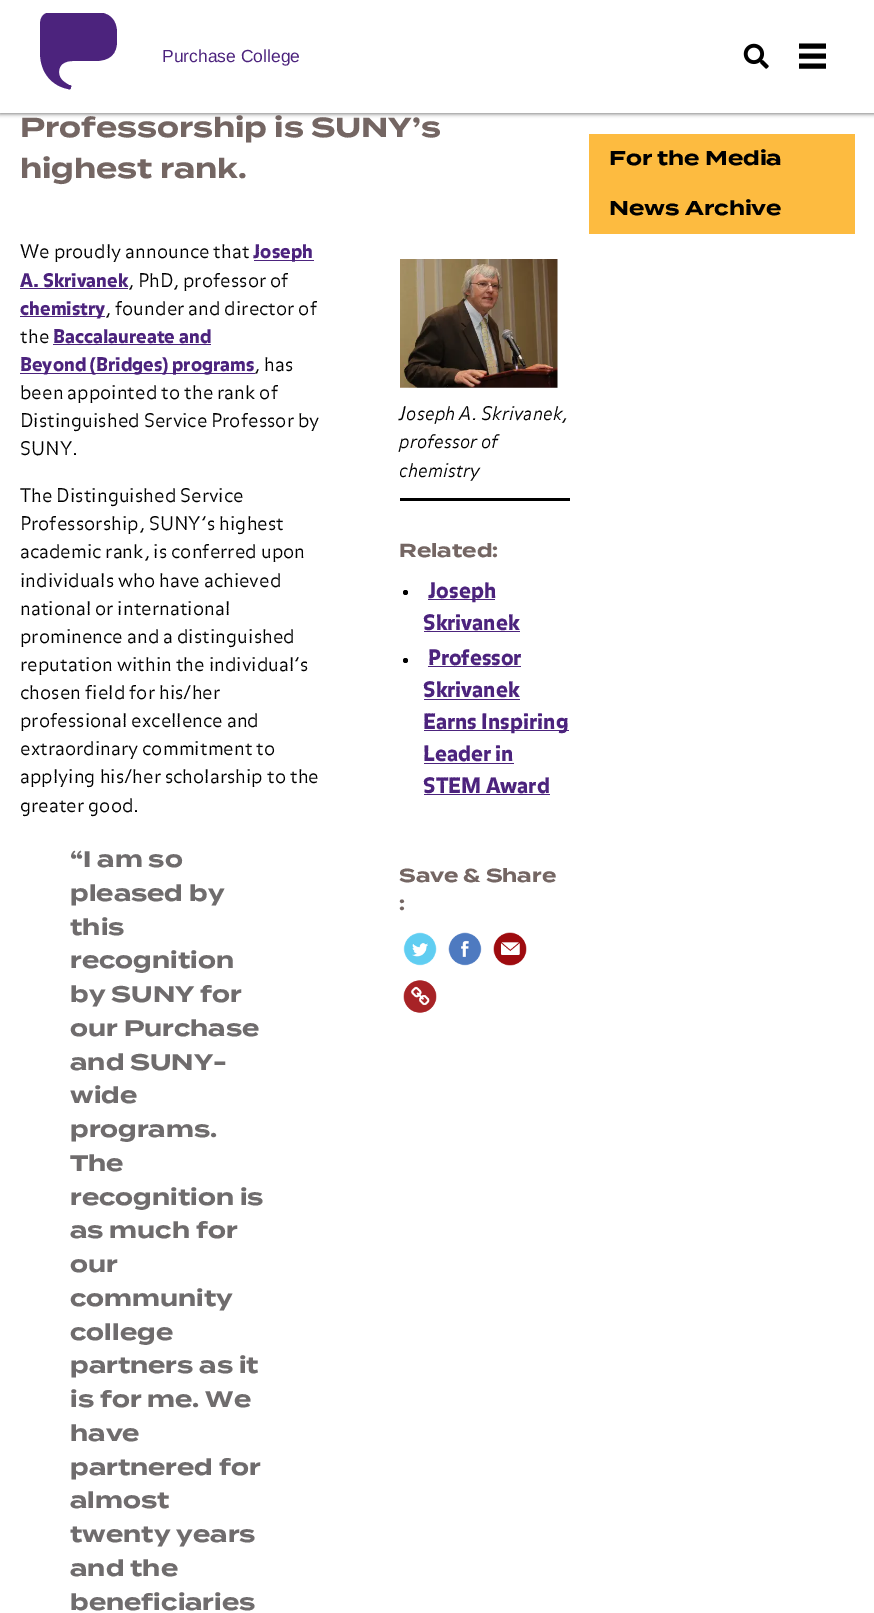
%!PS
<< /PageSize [874 1613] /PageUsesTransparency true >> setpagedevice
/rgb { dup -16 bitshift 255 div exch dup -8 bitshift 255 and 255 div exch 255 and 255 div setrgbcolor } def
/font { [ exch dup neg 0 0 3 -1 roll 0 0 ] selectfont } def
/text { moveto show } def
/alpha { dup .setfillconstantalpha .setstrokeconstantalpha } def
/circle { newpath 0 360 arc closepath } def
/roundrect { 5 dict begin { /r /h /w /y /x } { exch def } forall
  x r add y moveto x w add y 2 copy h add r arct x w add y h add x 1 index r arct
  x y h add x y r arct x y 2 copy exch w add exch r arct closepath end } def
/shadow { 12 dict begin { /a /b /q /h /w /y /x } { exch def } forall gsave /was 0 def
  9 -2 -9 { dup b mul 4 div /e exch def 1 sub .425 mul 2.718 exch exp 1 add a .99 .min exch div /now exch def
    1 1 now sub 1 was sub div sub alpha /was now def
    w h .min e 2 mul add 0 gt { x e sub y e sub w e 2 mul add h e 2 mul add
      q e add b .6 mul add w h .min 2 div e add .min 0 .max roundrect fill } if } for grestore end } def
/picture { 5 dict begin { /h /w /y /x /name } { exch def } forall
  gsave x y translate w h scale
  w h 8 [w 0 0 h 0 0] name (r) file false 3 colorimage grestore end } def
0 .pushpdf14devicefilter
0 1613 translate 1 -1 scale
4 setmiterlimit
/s1 { /LiberationSans-Regular 17.5 font 16#4C237D rgb } def
/s2 { /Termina-Bold 27.5 font 16#746663 rgb } def
/s3 { /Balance-Regular 18.75 font 16#000000 rgb } def
/s4 { /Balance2-Regular 18.75 font 16#4C237D rgb } def
/s5 { /Termina-Bold 22.5 font 16#6F6C6D rgb } def
/s6 { /Balance-Italic 18.75 font 16#000000 rgb } def
/s7 { /Termina-Bold 18.75 font 16#746663 rgb } def
/s8 { /Balance2-Regular 21.25 font 16#4C237D rgb } def
/s9 { /Termina-Bold 20 font 16#000000 rgb } def
16#FFFFFF rgb
0 0 874 1613 rectfill
16#000000 rgb
0 1 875 113 0 2 0.5 shadow
16#FFFFFF rgb
0 0 874 113 rectfill
gsave
40 13 78 77 rectclip
16#4C237D rgb
95 12 moveto 110 12 117 20 117 33 curveto 117 41 lineto 117 54 110 61 95 61 curveto 73 61 lineto 64 61 59 65 59 72 curveto 59 79 64 82 69 85 curveto 71 85 72 86 71 87 curveto 71 89 70 90 68 89 curveto 53 86 40 74 40 52 curveto 40 25 lineto 40 16 44 12 53 12 curveto closepath fill
grestore
s1
(Purchase College) 162 62 text
(pic1.raw) 743 43 26 26 picture
16#000000 rgb
5 setlinewidth
799 46 moveto 826 46 lineto 799 56 moveto 826 56 lineto 799 66 moveto 826 66 lineto stroke
s2
(Professorship is SUNY’s) 20 137 text
(highest rank.) 20 178 text
s3
(We proudly announce that) 20 258 text
16#4C237D rgb
254 260 60 1 rectfill
s4
(Joseph) 253 258 text
(A. Skrivanek) 20 287 text
20 288 108 1 rectfill
s3
(, PhD, professor of) 128 287 text
16#4C237D rgb
20 316 85 1 rectfill
s4
(chemistry) 20 315 text
s3
(, founder and director of) 105 315 text
(the) 20 343 text
s4
(Baccalaureate and) 53 343 text
53 344 158 1 rectfill
20 373 235 1 rectfill
(Beyond \(Bridges\) programs) 20 371 text
s3
(, has) 254 371 text
(been appointed to the rank of) 20 399 text
(Distinguished Service Professor by) 20 427 text
(SUNY.) 20 455 text
(The Distinguished Service) 20 502 text
(Professorship, SUNY’s highest) 20 530 text
(academic rank, is conferred upon) 20 558 text
(individuals who have achieved) 20 587 text
(national or international) 20 615 text
(prominence and a distinguished) 20 643 text
(reputation within the individual’s) 20 671 text
(chosen field for his/her) 20 699 text
(professional excellence and) 20 727 text
(extraordinary commitment to) 20 755 text
(applying his/her scholarship to the) 20 783 text
(greater good.) 20 812 text
s5
(“I am so) 70 867 text
(pleased by) 70 901 text
(this) 70 935 text
(recognition) 70 968 text
(by SUNY for) 70 1002 text
(our Purchase) 70 1036 text
(and SUNY-) 70 1070 text
(wide) 70 1103 text
(programs.) 70 1137 text
(The) 70 1171 text
(recognition is) 70 1205 text
(as much for) 70 1238 text
(our) 70 1272 text
(community) 70 1306 text
(college) 70 1340 text
(partners as it) 70 1373 text
(is for me. We) 70 1407 text
(have) 70 1441 text
(partnered for) 70 1475 text
(almost) 70 1508 text
(twenty years) 70 1542 text
(and the) 70 1576 text
(beneficiaries) 70 1610 text
(pic2.raw) 400 259 158 129 picture
16#000000 rgb
400 498 170 3 rectfill
s6
(Joseph A. Skrivanek,) 399 420 text
(professor of) 399 448 text
(chemistry) 399 477 text
s7
(Related:) 399 557 text
16#000000 rgb
405.5 592.5 2.5 circle fill
16#4C237D rgb
428 599 67 1 rectfill
s8
(Joseph) 428 598 text
(Skrivanek) 423 630 text
424 631 96 1 rectfill
16#000000 rgb
405.5 660.5 2.5 circle fill
s8
(Professor) 428 665 text
428 666 93 1 rectfill
(Skrivanek) 423 697 text
424 699 96 1 rectfill
424 730 145 1 rectfill
(Earns Inspiring) 423 729 text
(Leader in) 423 761 text
424 763 90 1 rectfill
(STEM Award) 423 793 text
424 794 126 1 rectfill
s7
(Save & Share) 399 882 text
(:) 399 910 text
(pic3.raw) 403 932 34 34 picture
(pic4.raw) 448 932 34 34 picture
(pic5.raw) 493 932 34 34 picture
(pic6.raw) 403 980 34 33 picture
16#FDBB40 rgb
589 134 266 100 rectfill
s9
(For the Media) 609 165 text
(News Archive) 609 215 text
.poppdf14devicefilter showpage
